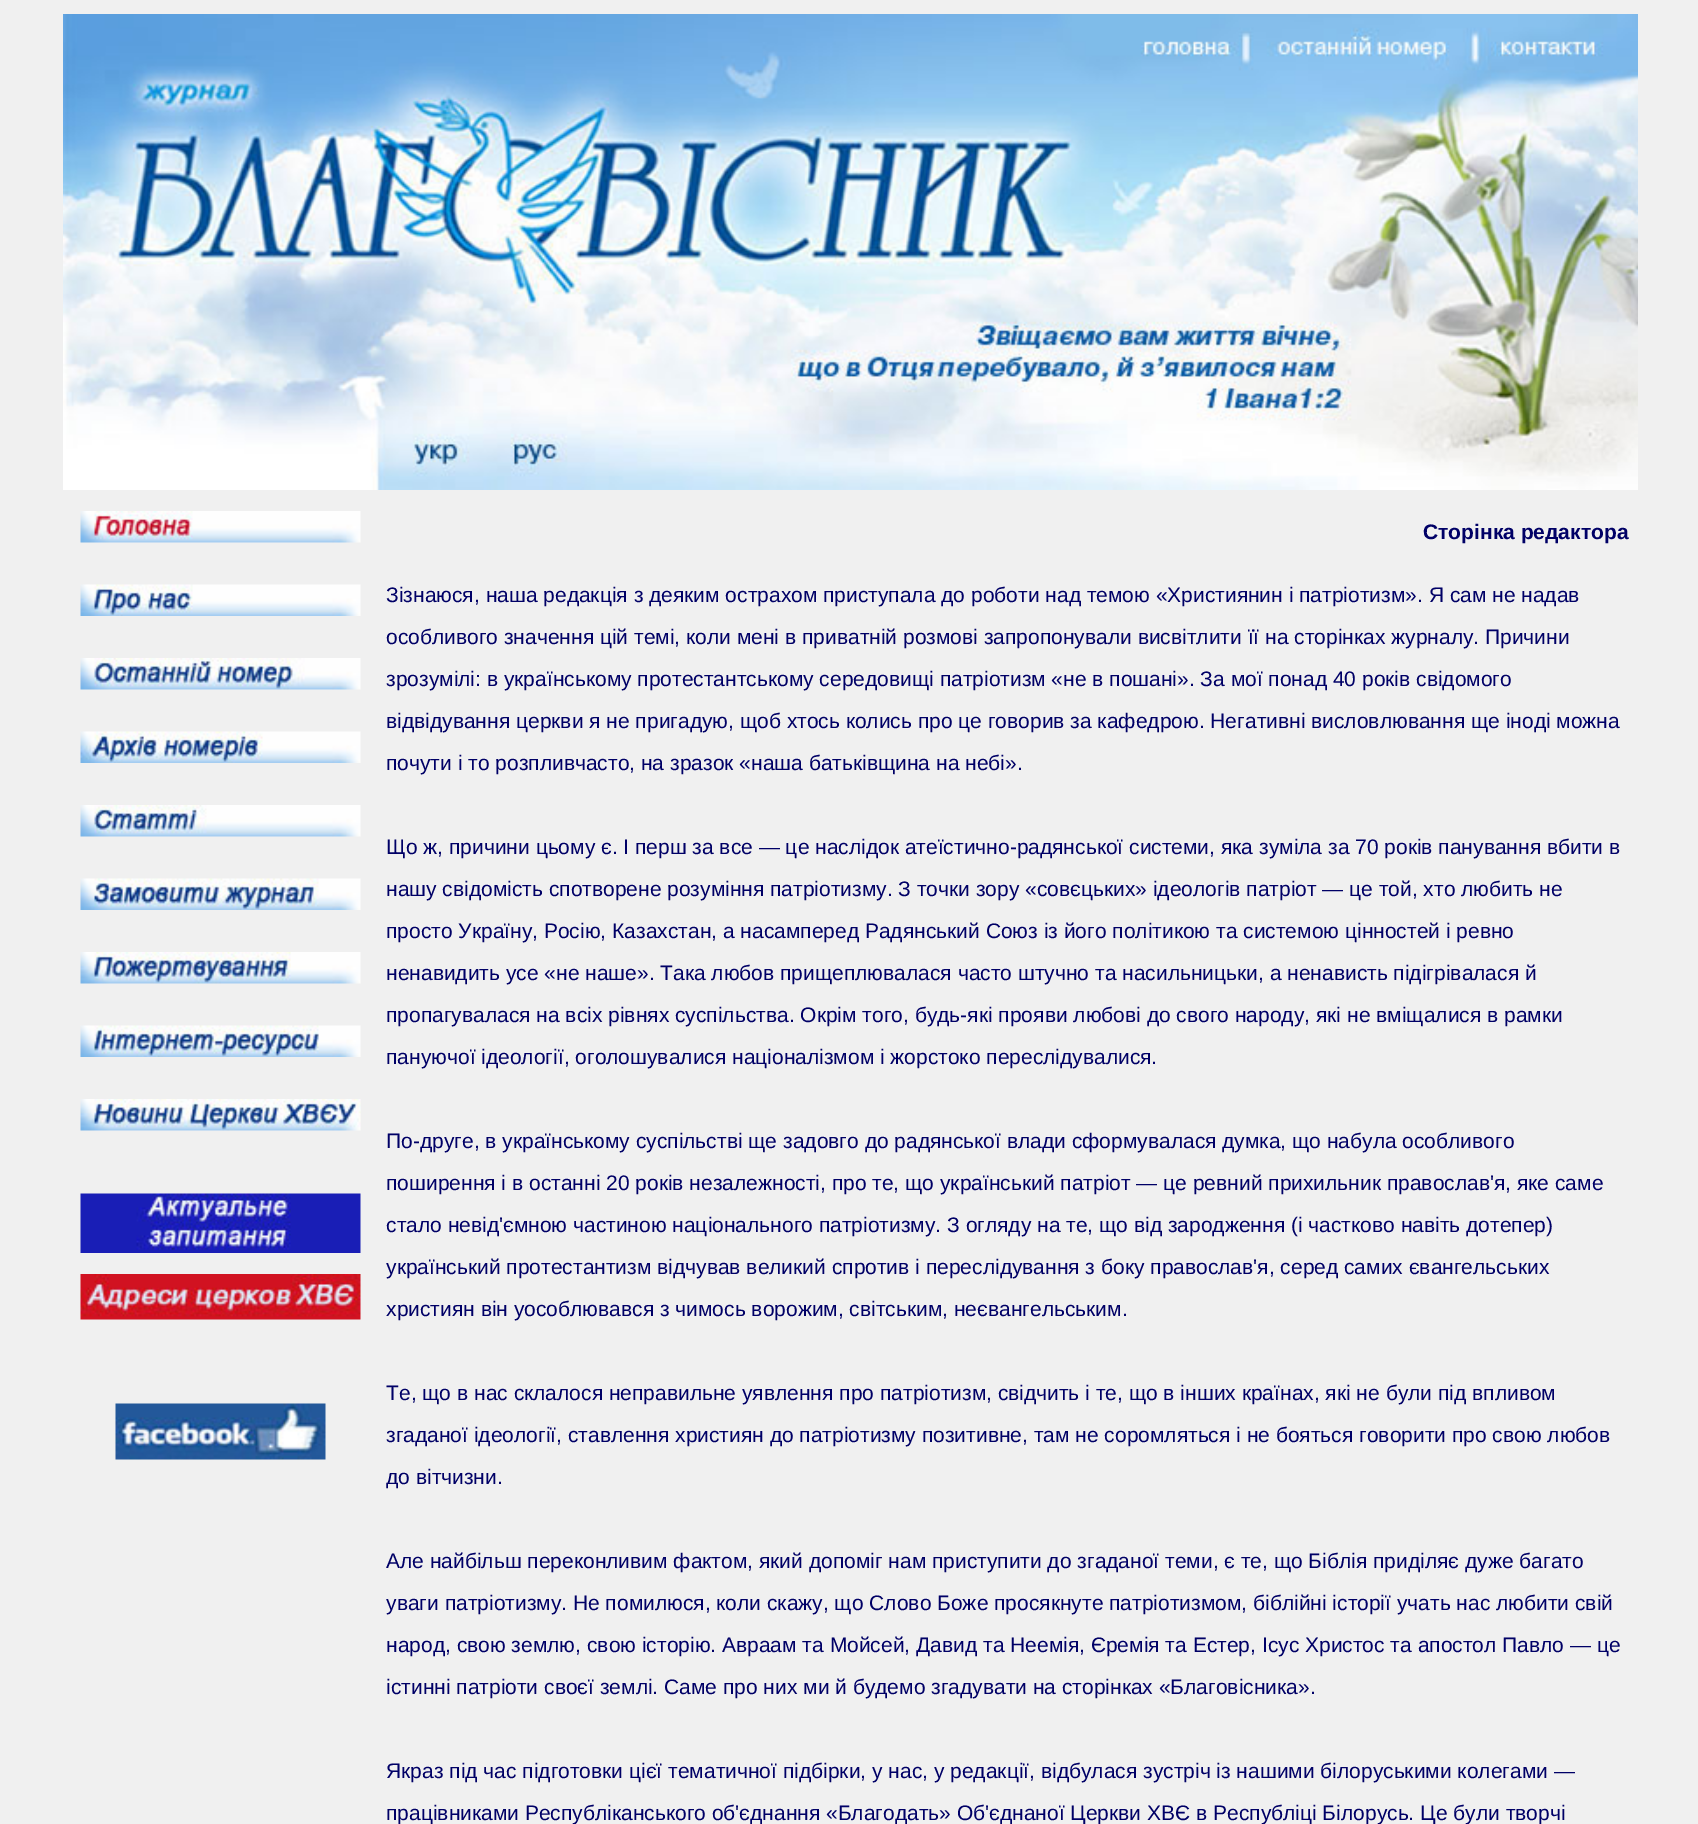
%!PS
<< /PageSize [1698 1824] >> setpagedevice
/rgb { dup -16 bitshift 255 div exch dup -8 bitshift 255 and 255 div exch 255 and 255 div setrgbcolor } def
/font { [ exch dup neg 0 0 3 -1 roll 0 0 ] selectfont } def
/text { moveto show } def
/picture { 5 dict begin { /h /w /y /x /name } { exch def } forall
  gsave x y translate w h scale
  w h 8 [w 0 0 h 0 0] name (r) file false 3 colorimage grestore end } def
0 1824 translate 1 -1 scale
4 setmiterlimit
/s1 { /LiberationSans-Bold 21 font 16#000066 rgb } def
/s2 { /LiberationSans-Regular 21 font 16#000066 rgb } def
16#F0F0F0 rgb
0 0 1698 1824 rectfill
(pic1.raw) 63 14 1575 476 picture
(pic2.raw) 80 511 281 32 picture
(pic3.raw) 80 584 281 32 picture
(pic4.raw) 80 658 281 32 picture
(pic5.raw) 80 731 281 32 picture
(pic6.raw) 80 805 281 32 picture
(pic7.raw) 80 878 281 32 picture
(pic8.raw) 80 952 281 32 picture
(pic9.raw) 80 1025 281 32 picture
(pic10.raw) 80 1099 281 32 picture
(pic11.raw) 80 1193 281 60 picture
(pic12.raw) 80 1274 281 46 picture
(pic13.raw) 115 1403 211 57 picture
s1
(Сторінка редактора) 1423 539 text
s2
(Зізнаюся, наша редакція з деяким острахом приступала до роботи над темою «Християнин і патріотизм». Я сам не надав) 386 602 text
(особливого значення цій темі, коли мені в приватній розмові запропонували висвітлити її на сторінках журналу. Причини) 386 644 text
(зрозумілі: в українському протестантському середовищі патріотизм «не в пошані». За мої понад 40 років свідомого) 386 686 text
(відвідування церкви я не пригадую, щоб хтось колись про це говорив за кафедрою. Негативні висловлювання ще іноді можна) 386 728 text
(почути і то розпливчасто, на зразок «наша батьківщина на небі».) 386 770 text
(Що ж, причини цьому є. І перш за все — це наслідок атеїстично-радянської системи, яка зуміла за 70 років панування вбити в) 386 854 text
(нашу свідомість спотворене розуміння патріотизму. З точки зору «совєцьких» ідеологів патріот — це той, хто любить не) 386 896 text
(просто Україну, Росію, Казахстан, а насамперед Радянський Союз із його політикою та системою цінностей і ревно) 386 938 text
(ненавидить усе «не наше». Така любов прищеплювалася часто штучно та насильницьки, а ненависть підігрівалася й) 386 980 text
(пропагувалася на всіх рівнях суспільства. Окрім того, будь-які прояви любові до свого народу, які не вміщалися в рамки) 386 1022 text
(пануючої ідеології, оголошувалися націоналізмом і жорстоко переслідувалися.) 386 1064 text
(По-друге, в українському суспільстві ще задовго до радянської влади сформувалася думка, що набула особливого) 386 1148 text
(поширення і в останні 20 років незалежності, про те, що український патріот — це ревний прихильник православ'я, яке саме) 386 1190 text
(стало невід'ємною частиною національного патріотизму. З огляду на те, що від зародження \(і частково навіть дотепер\)) 386 1232 text
(український протестантизм відчував великий спротив і переслідування з боку православ'я, серед самих євангельських) 386 1274 text
(християн він уособлювався з чимось ворожим, світським, неєвангельським.) 386 1316 text
(Те, що в нас склалося неправильне уявлення про патріотизм, свідчить і те, що в інших країнах, які не були під впливом) 386 1400 text
(згаданої ідеології, ставлення християн до патріотизму позитивне, там не соромляться і не бояться говорити про свою любов) 386 1442 text
(до вітчизни.) 386 1484 text
(Але найбільш переконливим фактом, який допоміг нам приступити до згаданої теми, є те, що Біблія приділяє дуже багато) 386 1568 text
(уваги патріотизму. Не помилюся, коли скажу, що Слово Боже просякнуте патріотизмом, біблійні історії учать нас любити свій) 386 1610 text
(народ, свою землю, свою історію. Авраам та Мойсей, Давид та Неемія, Єремія та Естер, Ісус Христос та апостол Павло — це) 386 1652 text
(істинні патріоти своєї землі. Саме про них ми й будемо згадувати на сторінках «Благовісника».) 386 1694 text
(Якраз під час підготовки цієї тематичної підбірки, у нас, у редакції, відбулася зустріч із нашими білоруськими колегами —) 386 1778 text
(працівниками Республіканського об'єднання «Благодать» Об'єднаної Церкви ХВЄ в Республіці Білорусь. Це були творчі) 386 1820 text
showpage
